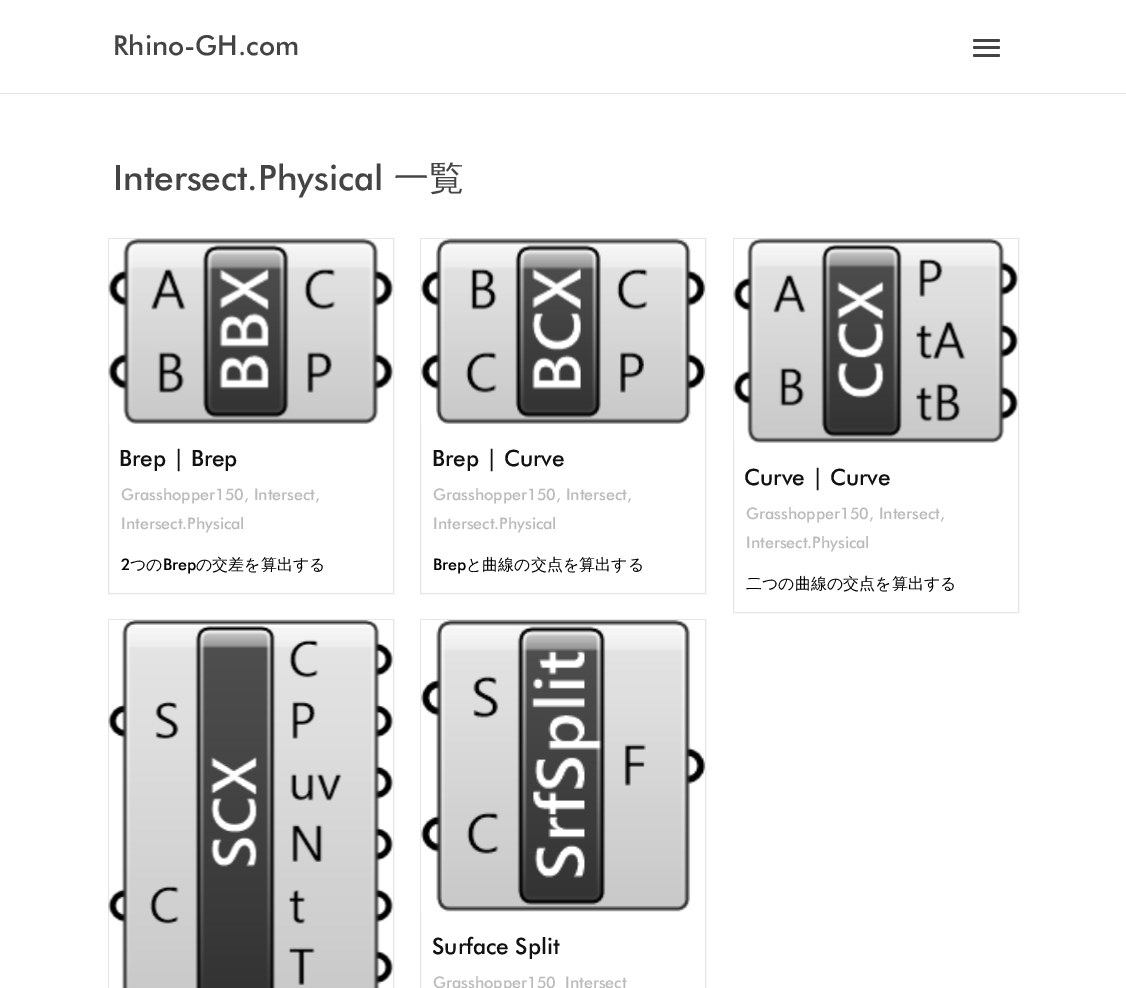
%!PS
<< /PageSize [1126 988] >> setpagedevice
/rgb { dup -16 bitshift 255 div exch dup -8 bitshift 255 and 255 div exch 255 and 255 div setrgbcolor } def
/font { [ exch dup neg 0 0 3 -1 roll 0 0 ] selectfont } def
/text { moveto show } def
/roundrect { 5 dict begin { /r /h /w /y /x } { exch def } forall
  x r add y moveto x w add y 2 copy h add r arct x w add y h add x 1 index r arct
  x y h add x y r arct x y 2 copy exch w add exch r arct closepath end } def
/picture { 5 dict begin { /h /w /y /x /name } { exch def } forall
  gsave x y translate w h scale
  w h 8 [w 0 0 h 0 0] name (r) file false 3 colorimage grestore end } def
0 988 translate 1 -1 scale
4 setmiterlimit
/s1 { /Futura-Medium 27.5 font 16#444444 rgb } def
/s2 { /Futura-Medium 35 font 16#444444 rgb } def
/s3 { /WenQuanYiZenHei-Medium 35 font 16#444444 rgb } def
/s4 { /Futura-Medium 22.5 font 16#111111 rgb } def
/s5 { /Futura-Medium 16 font 16#BBBBBB rgb } def
/s6 { /Futura-Medium 16 font 16#000000 rgb } def
/s7 { /WenQuanYiZenHei-Medium 16 font 16#000000 rgb } def
16#FFFFFF rgb
0 0 1126 988 rectfill
16#E5E5E5 rgb
0 93 1126 1 rectfill
s1
(Rhino-GH.com) 113 55 text
973 39 27 3 1.5 roundrect fill
973 46 27 3 1.5 roundrect fill
973 54 27 3 1.5 roundrect fill
s2
(Intersect.Physical) 113 190 text
s3
(一覧) 394 190 text
16#E5E5E5 rgb
108.5 238.5 285 355 rectstroke
(pic1.raw) 108 238 285 186 picture
s4
(Brep | Brep) 119 466 text
s5
(Grasshopper150, Intersect,) 121 500 text
(Intersect.Physical) 121 529 text
s6
(2) 121 570 text
s7
(つの) 130 570 text
s6
(Brep) 163 570 text
s7
(の交差を算出する) 196 570 text
16#E5E5E5 rgb
420.5 238.5 285 355 rectstroke
(pic2.raw) 421 238 284 186 picture
s4
(Brep | Curve) 432 466 text
s5
(Grasshopper150, Intersect,) 433 500 text
(Intersect.Physical) 433 529 text
s6
(Brep) 433 570 text
s7
(と曲線の交点を算出する) 466 570 text
16#E5E5E5 rgb
733.5 238.5 285 374 rectstroke
(pic3.raw) 733 238 285 205 picture
s4
(Curve | Curve) 744 485 text
s5
(Grasshopper150, Intersect,) 746 519 text
(Intersect.Physical) 746 548 text
s7
(二つの曲線の交点を算出する) 746 589 text
16#E5E5E5 rgb
108.5 619.5 285 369 rectstroke
(pic4.raw) 108 620 285 368 picture
420.5 619.5 285 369 rectstroke
(pic5.raw) 421 620 284 292 picture
s4
(Surface Split) 432 954 text
s5
(Grasshopper150) 433 988 text
(Intersect) 565 988 text
showpage
